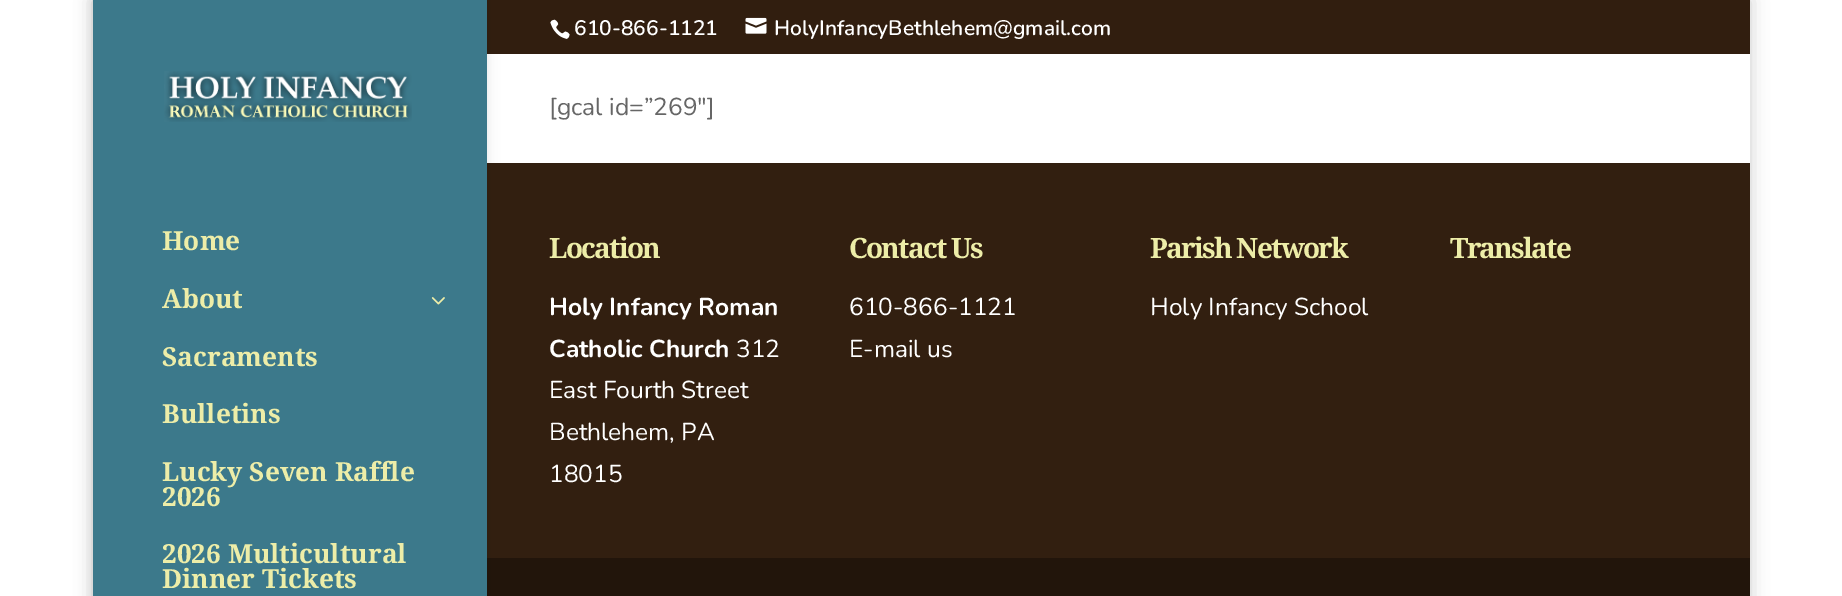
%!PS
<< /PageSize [1842 596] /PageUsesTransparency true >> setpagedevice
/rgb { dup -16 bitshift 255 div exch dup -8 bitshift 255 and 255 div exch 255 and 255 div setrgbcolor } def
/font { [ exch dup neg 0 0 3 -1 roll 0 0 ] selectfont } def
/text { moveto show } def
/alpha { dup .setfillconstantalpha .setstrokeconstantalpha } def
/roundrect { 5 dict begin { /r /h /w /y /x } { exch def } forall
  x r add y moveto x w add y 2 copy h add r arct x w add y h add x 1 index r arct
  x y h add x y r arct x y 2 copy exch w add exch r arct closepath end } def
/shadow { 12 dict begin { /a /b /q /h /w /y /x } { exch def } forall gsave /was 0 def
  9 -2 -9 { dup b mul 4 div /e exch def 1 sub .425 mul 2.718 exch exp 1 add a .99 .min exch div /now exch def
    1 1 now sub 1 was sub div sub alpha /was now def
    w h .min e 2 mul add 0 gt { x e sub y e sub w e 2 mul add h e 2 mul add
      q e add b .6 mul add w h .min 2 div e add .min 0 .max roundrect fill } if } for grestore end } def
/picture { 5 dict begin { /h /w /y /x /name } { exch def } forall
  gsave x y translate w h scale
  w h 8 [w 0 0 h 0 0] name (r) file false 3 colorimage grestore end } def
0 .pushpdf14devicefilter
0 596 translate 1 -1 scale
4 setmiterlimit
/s1 { /Nunito-SemiBold 21 font 16#FFFFFF rgb } def
/s2 { /DroidSerif-Bold 26.25 font 16#EDEDA8 rgb } def
/s3 { /Nunito-Regular 24.5 font 16#666666 rgb } def
/s4 { /Nunito-Bold 24.5 font 16#FFFFFF rgb } def
/s5 { /Nunito-Regular 24.5 font 16#FFFFFF rgb } def
16#FFFFFF rgb
0 0 1842 596 rectfill
gsave
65 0 moveto 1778 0 lineto 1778 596 lineto 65 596 lineto closepath 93 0 moveto 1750 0 lineto 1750 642 lineto 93 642 lineto closepath eoclip newpath
16#000000 rgb
93 0 1657 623 0 9 0.2 shadow
grestore
16#311E0F rgb
487 0 1263 54 rectfill
(pic1.raw) 550 19 20 20 picture
s1
(610-866-1121) 574 35 text
(pic2.raw) 745 17 22 17 picture
(HolyInfancyBethlehem@gmail.com) 774 35 text
16#321F10 rgb
487 163 1263 395 rectfill
16#22150B rgb
487 558 1263 38 rectfill
16#000000 rgb
93 0 394 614 0 6 0.1 shadow
16#3C798B rgb
93 0 394 596 rectfill
(pic3.raw) 164 71 248 51 picture
s2
(Home) 162 250 text
(About) 162 308 text
(pic4.raw) 431 297 14 8 picture
(Sacraments) 162 366 text
(Bulletins) 162 423 text
(Lucky Seven Raffle) 162 481 text
(2026) 162 506 text
(2026 Multicultural) 162 563 text
(Dinner Tickets) 162 588 text
s3
([gcal id=”269″]) 549 115 text
/DroidSerif-Bold 28 font
16#EDEDA8 rgb
549 258 moveto -1.75 0 (Location) ashow
s4
(Holy Infancy Roman) 549 315 text
(Catholic Church) 549 357 text
s5
(312) 736 357 text
(East Fourth Street) 549 398 text
(Bethlehem, PA) 549 440 text
(18015) 549 482 text
/DroidSerif-Bold 28 font
16#EDEDA8 rgb
849 258 moveto -1.75 0 (Contact Us) ashow
s5
(610-866-1121) 849 315 text
(E-mail us) 849 357 text
/DroidSerif-Bold 28 font
16#EDEDA8 rgb
1150 258 moveto -1.75 0 (Parish Network) ashow
s5
(Holy Infancy School) 1150 315 text
/DroidSerif-Bold 28 font
16#EDEDA8 rgb
1450 258 moveto -1.75 0 (Translate) ashow
.poppdf14devicefilter showpage
